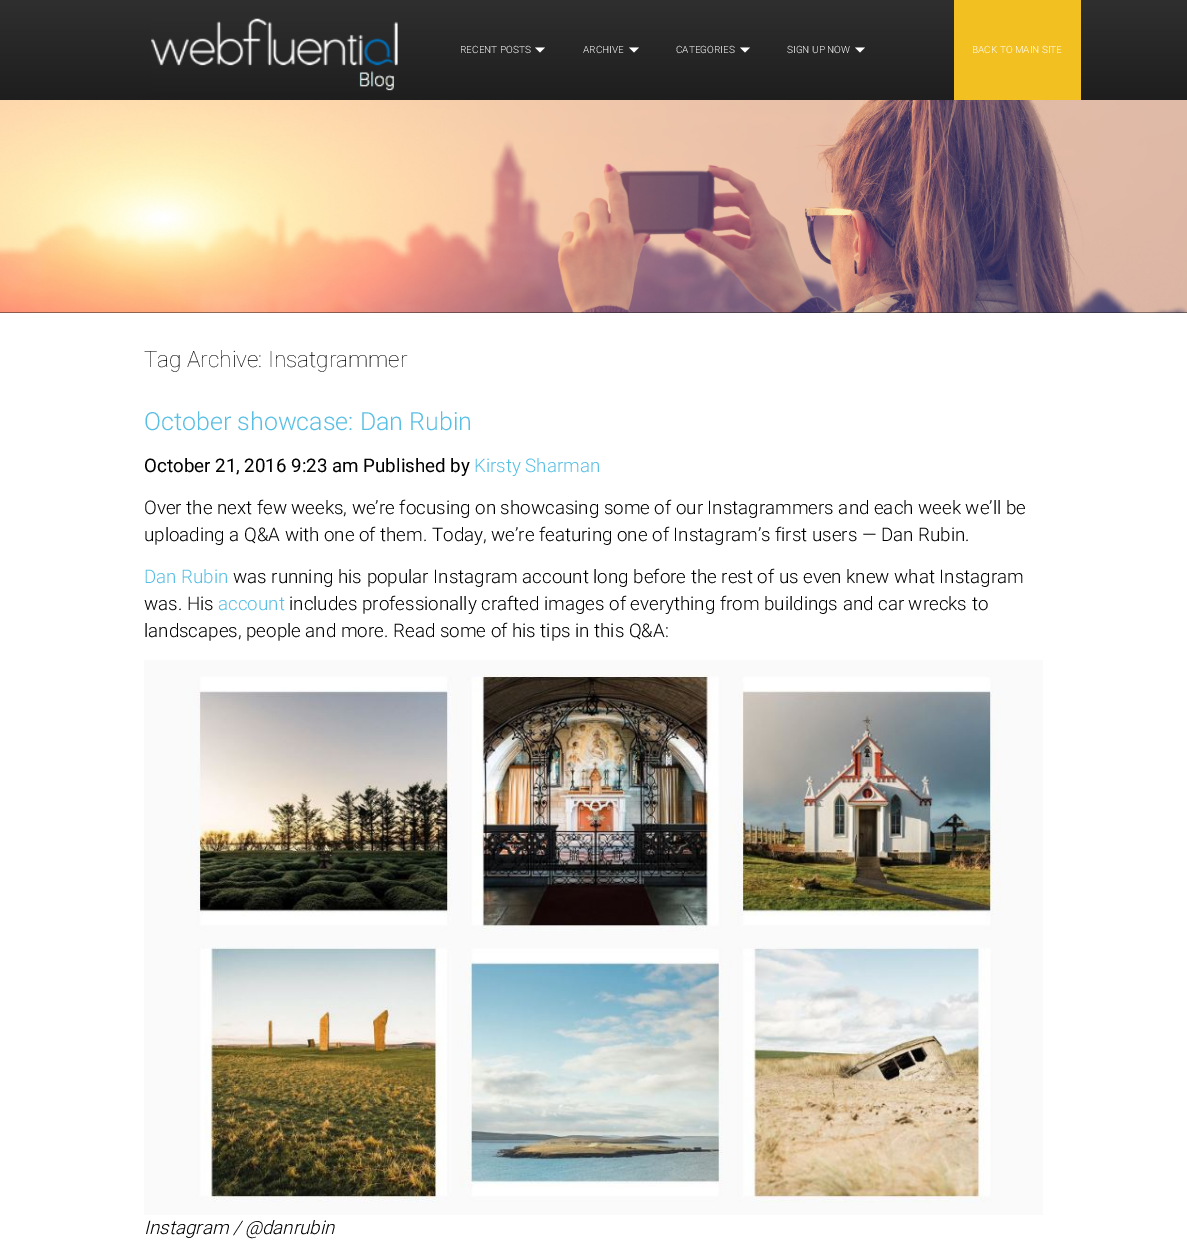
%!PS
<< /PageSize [1187 1255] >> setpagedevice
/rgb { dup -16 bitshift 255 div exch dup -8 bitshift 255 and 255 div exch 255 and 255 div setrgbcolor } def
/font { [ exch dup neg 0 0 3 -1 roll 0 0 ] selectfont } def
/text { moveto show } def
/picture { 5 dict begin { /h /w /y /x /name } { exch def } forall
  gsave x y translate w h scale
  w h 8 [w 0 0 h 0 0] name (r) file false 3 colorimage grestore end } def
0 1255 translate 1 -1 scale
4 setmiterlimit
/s1 { /Roboto-Light 10 font 16#FFFFFF rgb } def
/s2 { /Roboto-Thin 22.5 font 16#000000 rgb } def
/s3 { /Roboto-Light 25 font 16#58BFE4 rgb } def
/s4 { /Roboto-Regular 18.75 font 16#000000 rgb } def
/s5 { /Roboto-Light 18.75 font 16#58BFE4 rgb } def
/s6 { /Roboto-Light 18.75 font 16#000000 rgb } def
/s7 { /Roboto-LightItalic 18.75 font 16#000000 rgb } def
16#FFFFFF rgb
0 0 1187 1255 rectfill
gsave 0 0 moveto 1187 0 lineto 1187 100 lineto 0 100 lineto closepath clip newpath
<< /ShadingType 2 /ColorSpace /DeviceRGB /Coords [594 0 594 100] /Extend [true true] /Function << /FunctionType 2 /Domain [0 1] /C0 [0.184 0.184 0.184] /C1 [0.118 0.118 0.118] /N 1 >> >> shfill grestore
(pic1.raw) 151 18 247 73 picture
s1
(RECENT POSTS) 460 53 text
535 47.5 moveto 545 47.5 lineto 540 52.5 lineto closepath fill
(ARCHIVE) 583 53 text
629 47.5 moveto 639 47.5 lineto 634 52.5 lineto closepath fill
(CATEGORIES) 676 53 text
740 47.5 moveto 750 47.5 lineto 745 52.5 lineto closepath fill
(SIGN UP NOW) 787 53 text
855 47.5 moveto 865 47.5 lineto 860 52.5 lineto closepath fill
16#F3C022 rgb
954 0 127 100 rectfill
s1
(BACK TO MAIN SITE) 972 53 text
gsave 0 312 moveto 1187 312 lineto 1187 313 lineto 0 313 lineto closepath clip newpath
<< /ShadingType 2 /ColorSpace /DeviceRGB /Coords [594 100 594 313] /Extend [true true] /Function << /FunctionType 2 /Domain [0 1] /C0 [0.184 0.184 0.184] /C1 [0.118 0.118 0.118] /N 1 >> >> shfill grestore
(pic2.raw) 0 100 1187 213 picture
s2
(Tag Archive: Insatgrammer) 144 367 text
s3
(October showcase: Dan Rubin) 144 430 text
s4
(October 21, 2016 9:23 am Published by) 144 472 text
s5
(Kirsty Sharman) 474 472 text
s6
(Over the next few weeks, we’re focusing on showcasing some of our Instagrammers and each week we’ll be) 144 514 text
(uploading a Q&A with one of them. Today, we’re featuring one of Instagram’s first users — Dan Rubin.) 144 541 text
s5
(Dan Rubin) 144 583 text
s6
(was running his popular Instagram account long before the rest of us even knew what Instagram) 233 583 text
(was. His) 144 610 text
s5
(account) 218 610 text
s6
(includes professionally crafted images of everything from buildings and car wrecks to) 289 610 text
(landscapes, people and more. Read some of his tips in this Q&A:) 144 637 text
(pic3.raw) 144 660 899 555 picture
s7
(Instagram / @danrubin) 144 1234 text
showpage
